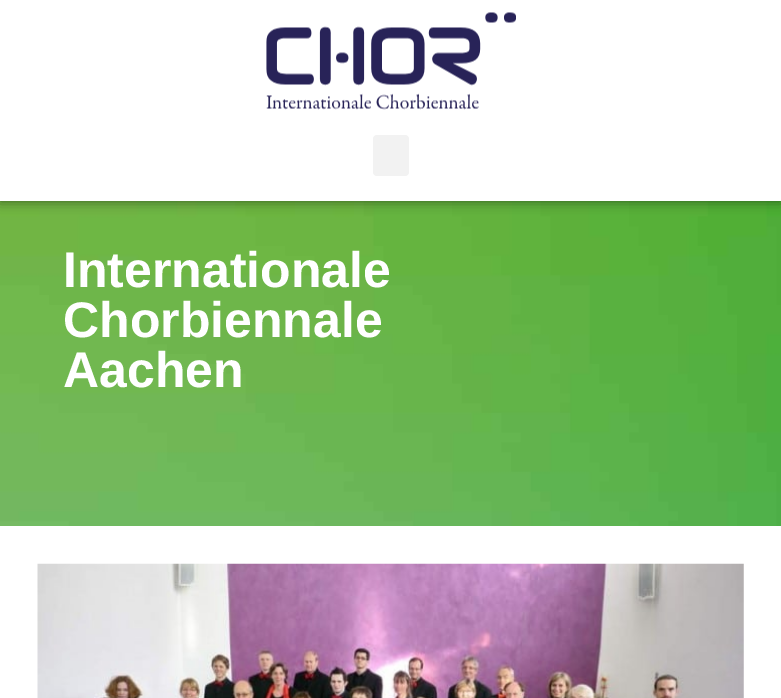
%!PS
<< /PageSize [781 698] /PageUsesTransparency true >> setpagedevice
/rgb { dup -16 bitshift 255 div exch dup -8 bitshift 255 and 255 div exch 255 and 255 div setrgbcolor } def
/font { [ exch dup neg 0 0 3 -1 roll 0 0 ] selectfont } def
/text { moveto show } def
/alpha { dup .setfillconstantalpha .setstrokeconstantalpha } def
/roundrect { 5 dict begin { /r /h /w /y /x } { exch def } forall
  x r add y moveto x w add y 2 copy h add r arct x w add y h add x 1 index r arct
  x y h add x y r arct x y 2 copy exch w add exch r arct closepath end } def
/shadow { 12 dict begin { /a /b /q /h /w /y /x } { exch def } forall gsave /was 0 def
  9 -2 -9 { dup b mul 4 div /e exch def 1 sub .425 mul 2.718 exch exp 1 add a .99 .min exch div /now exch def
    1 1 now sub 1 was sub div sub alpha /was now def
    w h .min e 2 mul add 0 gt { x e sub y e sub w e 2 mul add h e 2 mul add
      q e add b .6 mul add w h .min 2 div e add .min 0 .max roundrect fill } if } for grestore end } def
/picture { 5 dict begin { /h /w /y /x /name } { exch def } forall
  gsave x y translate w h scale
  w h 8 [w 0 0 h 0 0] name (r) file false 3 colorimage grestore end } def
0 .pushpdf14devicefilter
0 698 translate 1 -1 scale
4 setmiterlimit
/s1 { /LiberationSans-Bold 50 font 16#FFFFFF rgb } def
16#FFFFFF rgb
0 0 781 698 rectfill
(pic1.raw) 0 201 781 325 picture
16#000000 rgb
0 0 781 201 0 6 0.5 shadow
16#FFFFFF rgb
0 0 781 201 rectfill
(pic2.raw) 266 12 250 98 picture
16#F2F2F2 rgb
373 135 36 41 4 roundrect fill
s1
(Internationale) 63 287 text
(Chorbiennale) 63 337 text
(Aachen) 63 387 text
(pic3.raw) 37 563 707 135 picture
.poppdf14devicefilter showpage
